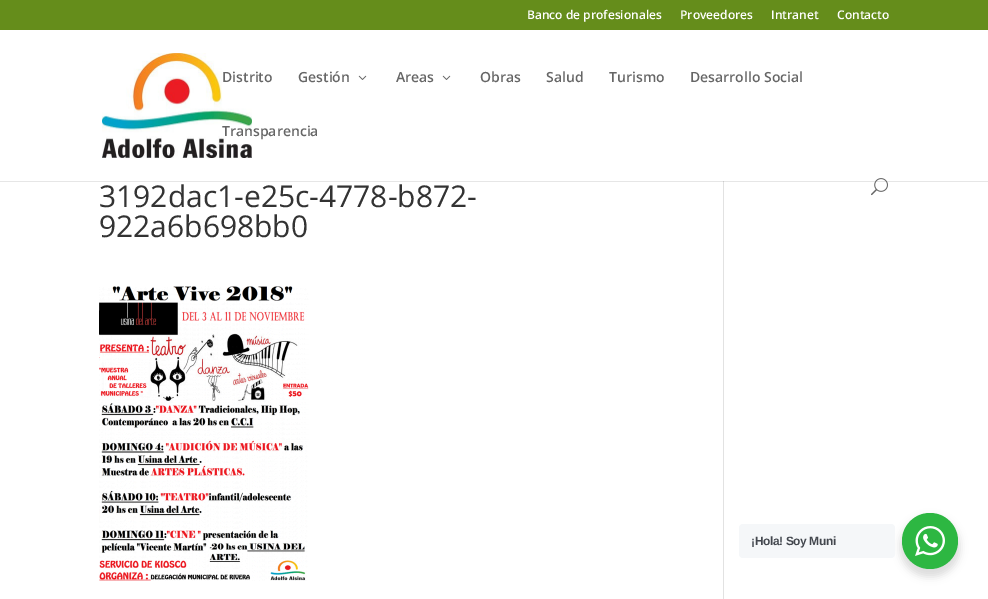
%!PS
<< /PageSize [988 599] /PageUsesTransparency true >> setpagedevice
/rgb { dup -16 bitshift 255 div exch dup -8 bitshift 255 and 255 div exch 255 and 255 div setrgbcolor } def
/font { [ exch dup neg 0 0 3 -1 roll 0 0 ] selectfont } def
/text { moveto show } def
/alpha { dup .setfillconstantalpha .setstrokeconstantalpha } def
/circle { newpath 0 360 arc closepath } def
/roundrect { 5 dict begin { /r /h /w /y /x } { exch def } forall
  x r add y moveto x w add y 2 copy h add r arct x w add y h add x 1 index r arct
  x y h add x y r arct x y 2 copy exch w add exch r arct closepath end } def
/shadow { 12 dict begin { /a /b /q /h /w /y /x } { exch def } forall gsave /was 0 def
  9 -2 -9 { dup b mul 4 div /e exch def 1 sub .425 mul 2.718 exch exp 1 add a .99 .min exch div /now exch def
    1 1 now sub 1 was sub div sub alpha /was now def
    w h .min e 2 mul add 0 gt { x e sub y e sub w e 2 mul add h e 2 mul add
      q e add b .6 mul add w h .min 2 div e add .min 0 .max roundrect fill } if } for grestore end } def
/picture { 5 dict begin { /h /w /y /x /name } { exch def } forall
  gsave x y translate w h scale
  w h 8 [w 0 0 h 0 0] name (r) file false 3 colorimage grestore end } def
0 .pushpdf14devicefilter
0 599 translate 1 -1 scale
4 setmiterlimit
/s1 { /OpenSans-SemiBold 12 font 16#FFFFFF rgb } def
/s2 { /OpenSans-SemiBold 14 font 16#666666 rgb } def
/s3 { /OpenSans-Regular 30 font 16#333333 rgb } def
16#FFFFFF rgb
0 0 988 599 rectfill
16#E6E6E6 rgb
0 181 988 1 rectfill
16#658D1B rgb
0 0 988 30 rectfill
s1
(Banco de profesionales) 527 19 text
(Proveedores) 680 19 text
(Intranet) 771 19 text
(Contacto) 837 19 text
(pic1.raw) 102 53 150 105 picture
s2
(Distrito) 222 82 text
(Gestión) 298 82 text
(pic2.raw) 358 75 9 5 picture
(Areas) 396 82 text
(pic2.raw) 442 75 9 5 picture
(Obras) 480 82 text
(Salud) 546 82 text
(Turismo) 609 82 text
(Desarrollo Social) 690 82 text
(Transparencia) 222 136 text
(pic3.raw) 871 178 17 18 picture
s3
(3192dac1-e25c-4778-b872-) 99 207 text
(922a6b698bb0) 99 237 text
(pic4.raw) 99 286 210 295 picture
16#E2E2E2 rgb
723 182 1 417 rectfill
16#CBCBCB rgb
723 181 1 1 rectfill
16#000000 rgb
900 517 60 60 30 4 0.14 shadow
16#F5F7F9 rgb
739 524 156 34 4 roundrect fill
/LiberationSans-Bold 12 font
16#43474E rgb
751 545 moveto -0.4 0 (¡Hola! Soy Muni) ashow
16#2DB742 rgb
930 541 28 circle fill
(pic5.raw) 915 526 30 30 picture
.poppdf14devicefilter showpage
